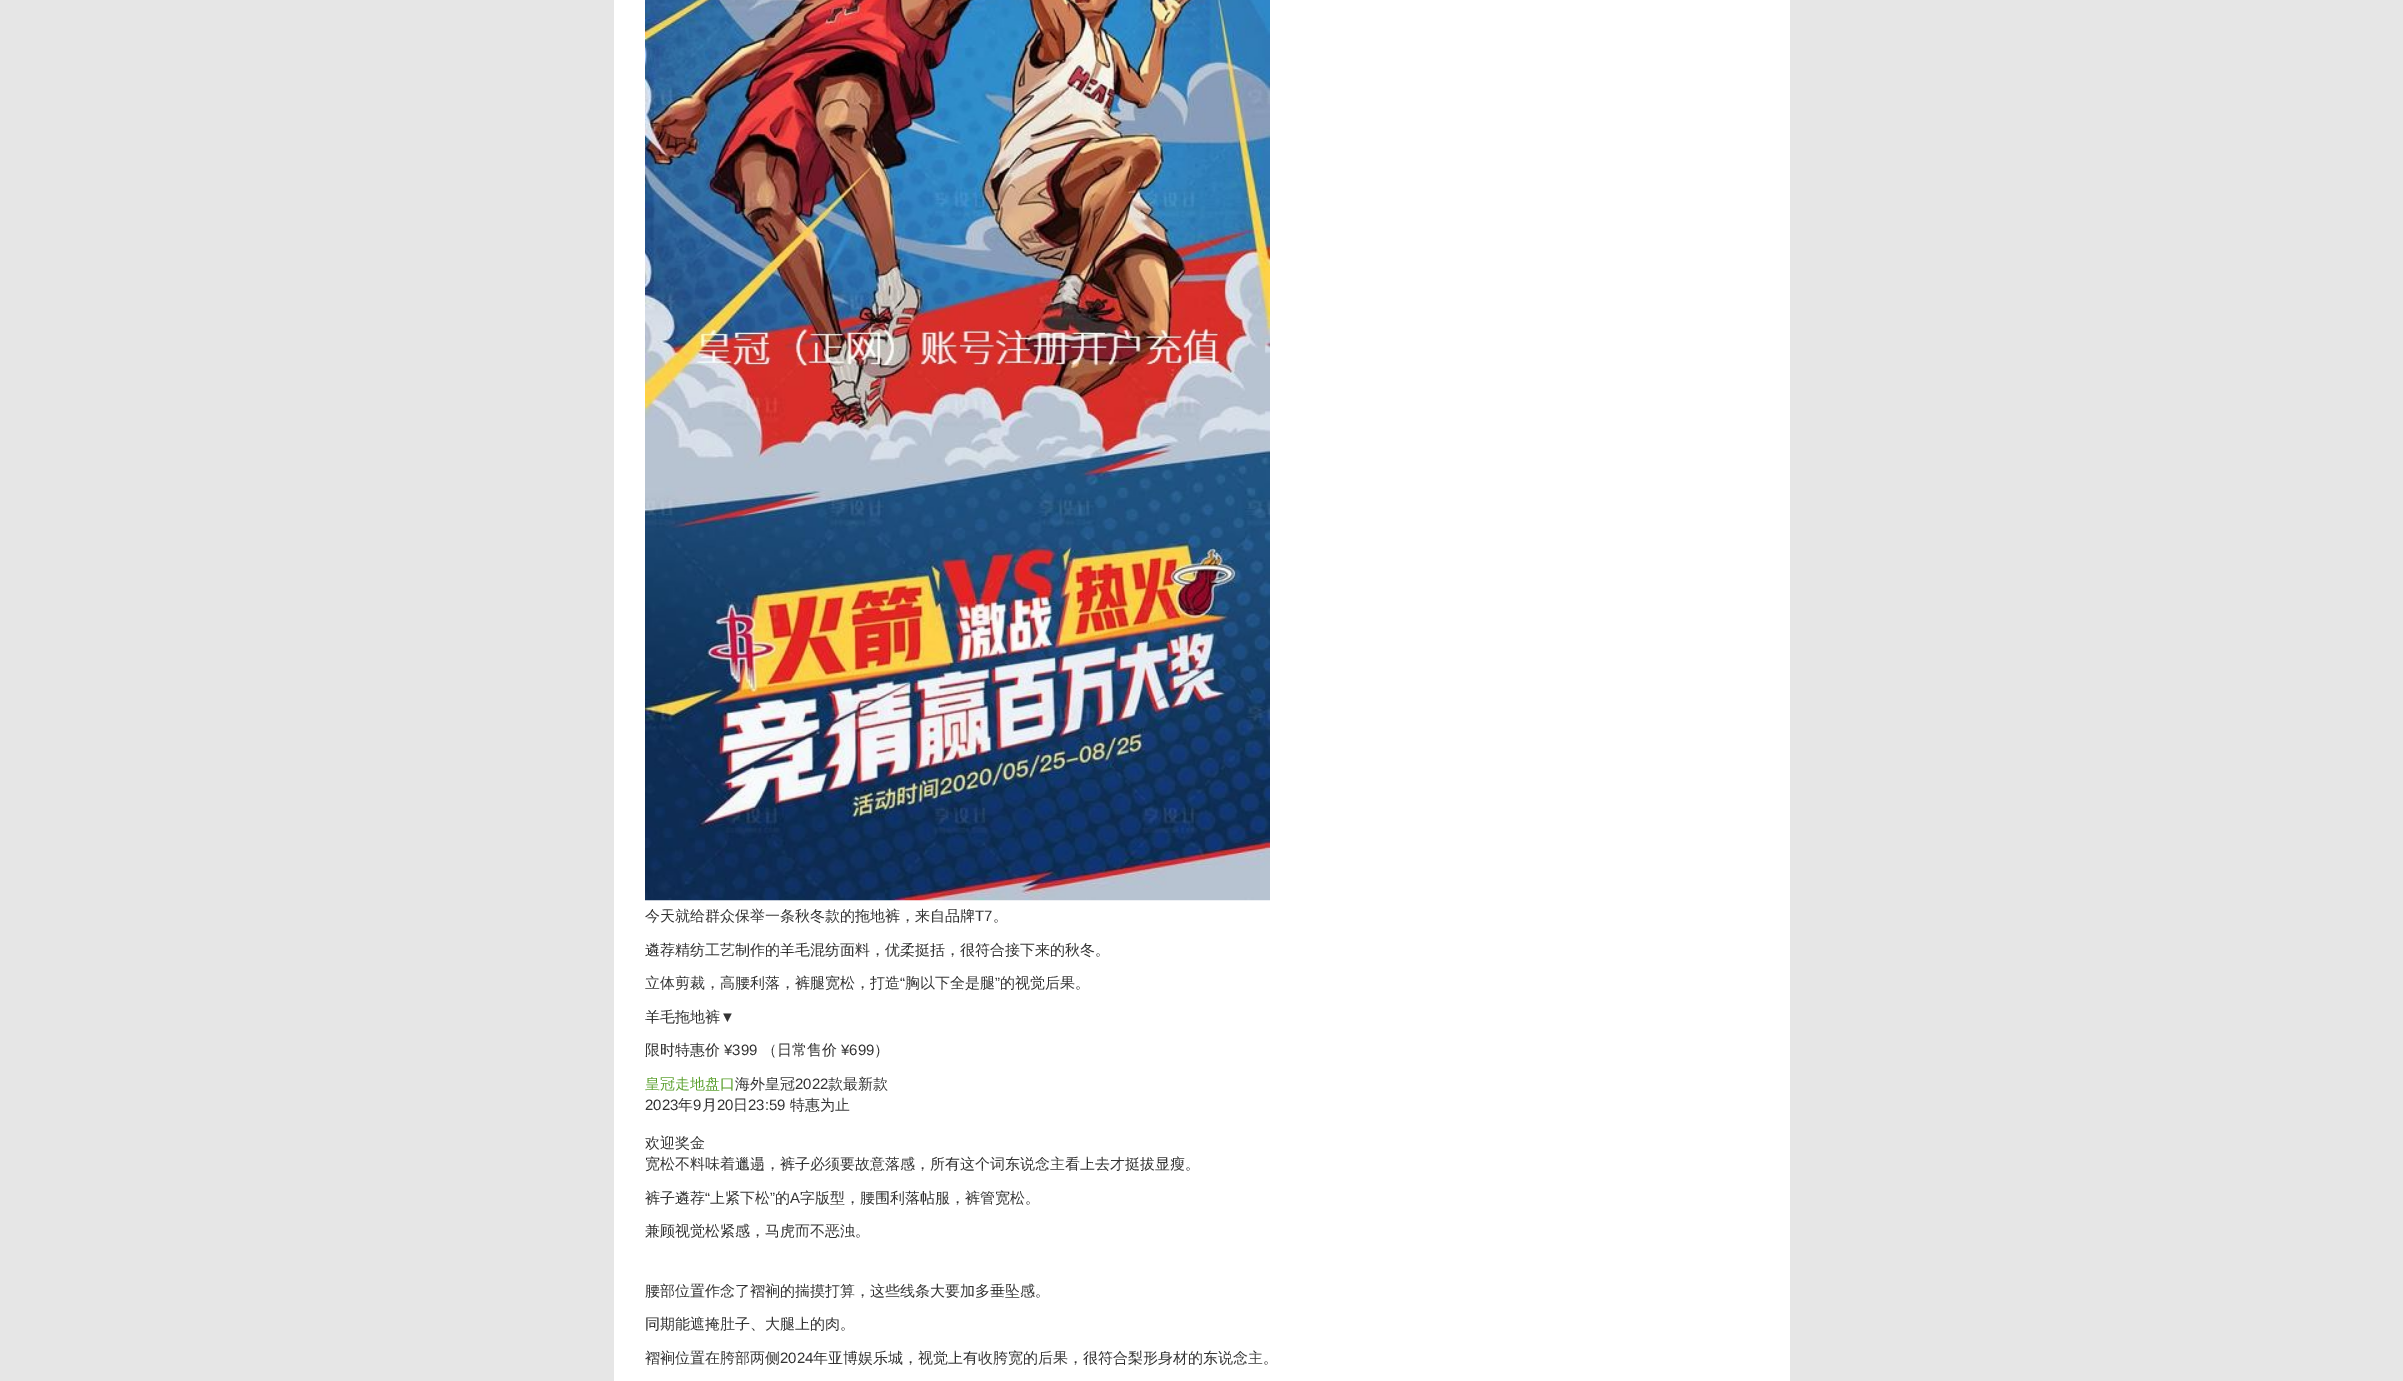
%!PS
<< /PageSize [2403 1381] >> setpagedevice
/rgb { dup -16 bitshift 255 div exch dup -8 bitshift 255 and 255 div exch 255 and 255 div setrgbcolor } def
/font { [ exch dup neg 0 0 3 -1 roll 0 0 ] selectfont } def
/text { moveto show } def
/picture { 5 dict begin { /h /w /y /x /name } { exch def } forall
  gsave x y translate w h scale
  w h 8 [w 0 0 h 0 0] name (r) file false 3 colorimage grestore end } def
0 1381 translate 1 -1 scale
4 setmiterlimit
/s1 { /WenQuanYiZenHei-Medium 15 font 16#333333 rgb } def
/s2 { /LiberationSans-Regular 15 font 16#333333 rgb } def
/s3 { /WenQuanYiZenHei-Medium 15 font 16#5CA12F rgb } def
16#E6E6E6 rgb
0 0 2403 1381 rectfill
16#FFFFFF rgb
614 0 1176 1381 rectfill
(pic1.raw) 645 0 625 901 picture
s1
(今天就给群众保举一条秋冬款的拖地裤，来自品牌) 645 921 text
s2
(T7) 975 921 text
s1
(。) 993 921 text
(遴荐精纺工艺制作的羊毛混纺面料，优柔挺括，很符合接下来的秋冬。) 645 955 text
(立体剪裁，高腰利落，裤腿宽松，打造) 645 988 text
s2
(“) 900 988 text
s1
(胸以下全是腿) 905 988 text
s2
(”) 995 988 text
s1
(的视觉后果。) 1000 988 text
(羊毛拖地裤) 645 1022 text
s2
(▼) 720 1022 text
s1
(限时特惠价) 645 1055 text
s2
(¥399) 724 1055 text
s1
(（日常售价) 762 1055 text
s2
(¥699) 841 1055 text
s1
(）) 874 1055 text
s3
(皇冠走地盘口) 645 1089 text
s1
(海外皇冠) 735 1089 text
s2
(2022) 795 1089 text
s1
(款最新款) 828 1089 text
s2
(2023) 645 1110 text
s1
(年) 678 1110 text
s2
(9) 693 1110 text
s1
(月) 702 1110 text
s2
(20) 717 1110 text
s1
(日) 733 1110 text
s2
(23:59) 748 1110 text
s1
(特惠为止) 790 1110 text
(欢迎奖金) 645 1148 text
(宽松不料味着邋遢，裤子必须要故意落感，所有这个词东说念主看上去才挺拔显瘦。) 645 1169 text
(裤子遴荐) 645 1203 text
s2
(“) 705 1203 text
s1
(上紧下松) 710 1203 text
s2
(”) 770 1203 text
s1
(的) 775 1203 text
s2
(A) 790 1203 text
s1
(字版型，腰围利落帖服，裤管宽松。) 800 1203 text
(兼顾视觉松紧感，马虎而不恶浊。) 645 1236 text
(腰部位置作念了褶裥的揣摸打算，这些线条大要加多垂坠感。) 645 1296 text
(同期能遮掩肚子、大腿上的肉。) 645 1329 text
(褶裥位置在胯部两侧) 645 1363 text
s2
(2024) 780 1363 text
s1
(年亚博娱乐城，视觉上有收胯宽的后果，很符合梨形身材的东说念主。) 813 1363 text
showpage
